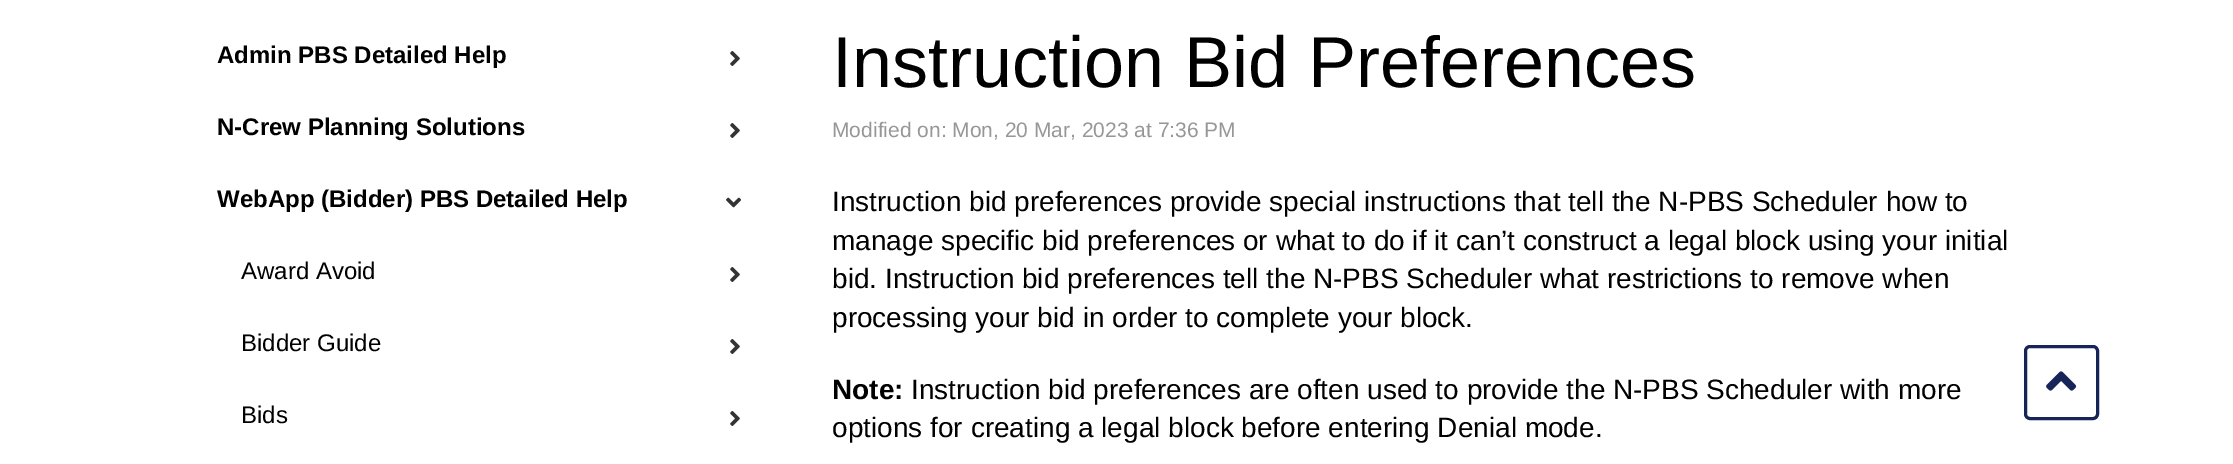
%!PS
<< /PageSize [2233 464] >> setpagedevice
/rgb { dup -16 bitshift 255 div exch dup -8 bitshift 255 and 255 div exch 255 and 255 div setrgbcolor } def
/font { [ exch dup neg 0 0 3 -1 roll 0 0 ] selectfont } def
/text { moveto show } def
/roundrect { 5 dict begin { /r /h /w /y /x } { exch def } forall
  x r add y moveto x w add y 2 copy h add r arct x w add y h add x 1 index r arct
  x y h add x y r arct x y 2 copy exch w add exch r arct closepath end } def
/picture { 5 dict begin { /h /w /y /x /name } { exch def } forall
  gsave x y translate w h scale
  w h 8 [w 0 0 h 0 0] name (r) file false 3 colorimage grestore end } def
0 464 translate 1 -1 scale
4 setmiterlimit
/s1 { /LiberationSans-Bold 24 font 16#000000 rgb } def
/s2 { /LiberationSans-Regular 24 font 16#000000 rgb } def
/s3 { /LiberationSans-Regular 72 font 16#000000 rgb } def
/s4 { /LiberationSans-Regular 21 font 16#979797 rgb } def
/s5 { /LiberationSans-Regular 28 font 16#000000 rgb } def
/s6 { /LiberationSans-Bold 28 font 16#000000 rgb } def
16#FFFFFF rgb
0 0 2233 464 rectfill
s1
(Admin PBS Detailed Help) 217 63 text
(pic1.raw) 730 51 10 15 picture
(N-Crew Planning Solutions) 217 135 text
(pic1.raw) 730 123 10 15 picture
(WebApp \(Bidder\) PBS Detailed Help) 217 207 text
(pic2.raw) 726 197 15 11 picture
s2
(Award Avoid) 241 279 text
(pic1.raw) 730 267 10 15 picture
(Bidder Guide) 241 351 text
(pic1.raw) 730 339 10 15 picture
(Bids) 241 423 text
(pic1.raw) 730 411 10 15 picture
s3
(Instruction Bid Preferences) 832 87 text
s4
(Modified on: Mon, 20 Mar, 2023 at 7:36 PM) 832 137 text
s5
(Instruction bid preferences provide special instructions that tell the N-PBS Scheduler how to) 832 211 text
(manage specific bid preferences or what to do if it can’t construct a legal block using your initial) 832 250 text
(bid. Instruction bid preferences tell the N-PBS Scheduler what restrictions to remove when) 832 288 text
(processing your bid in order to complete your block.) 832 327 text
s6
(Note:) 832 399 text
s5
(Instruction bid preferences are often used to provide the N-PBS Scheduler with more) 911 399 text
(options for creating a legal block before entering Denial mode.) 832 437 text
16#162457 rgb
3 setlinewidth
2025.5 346.5 72 72 4.5 roundrect stroke
(pic3.raw) 2046 371 31 20 picture
showpage
